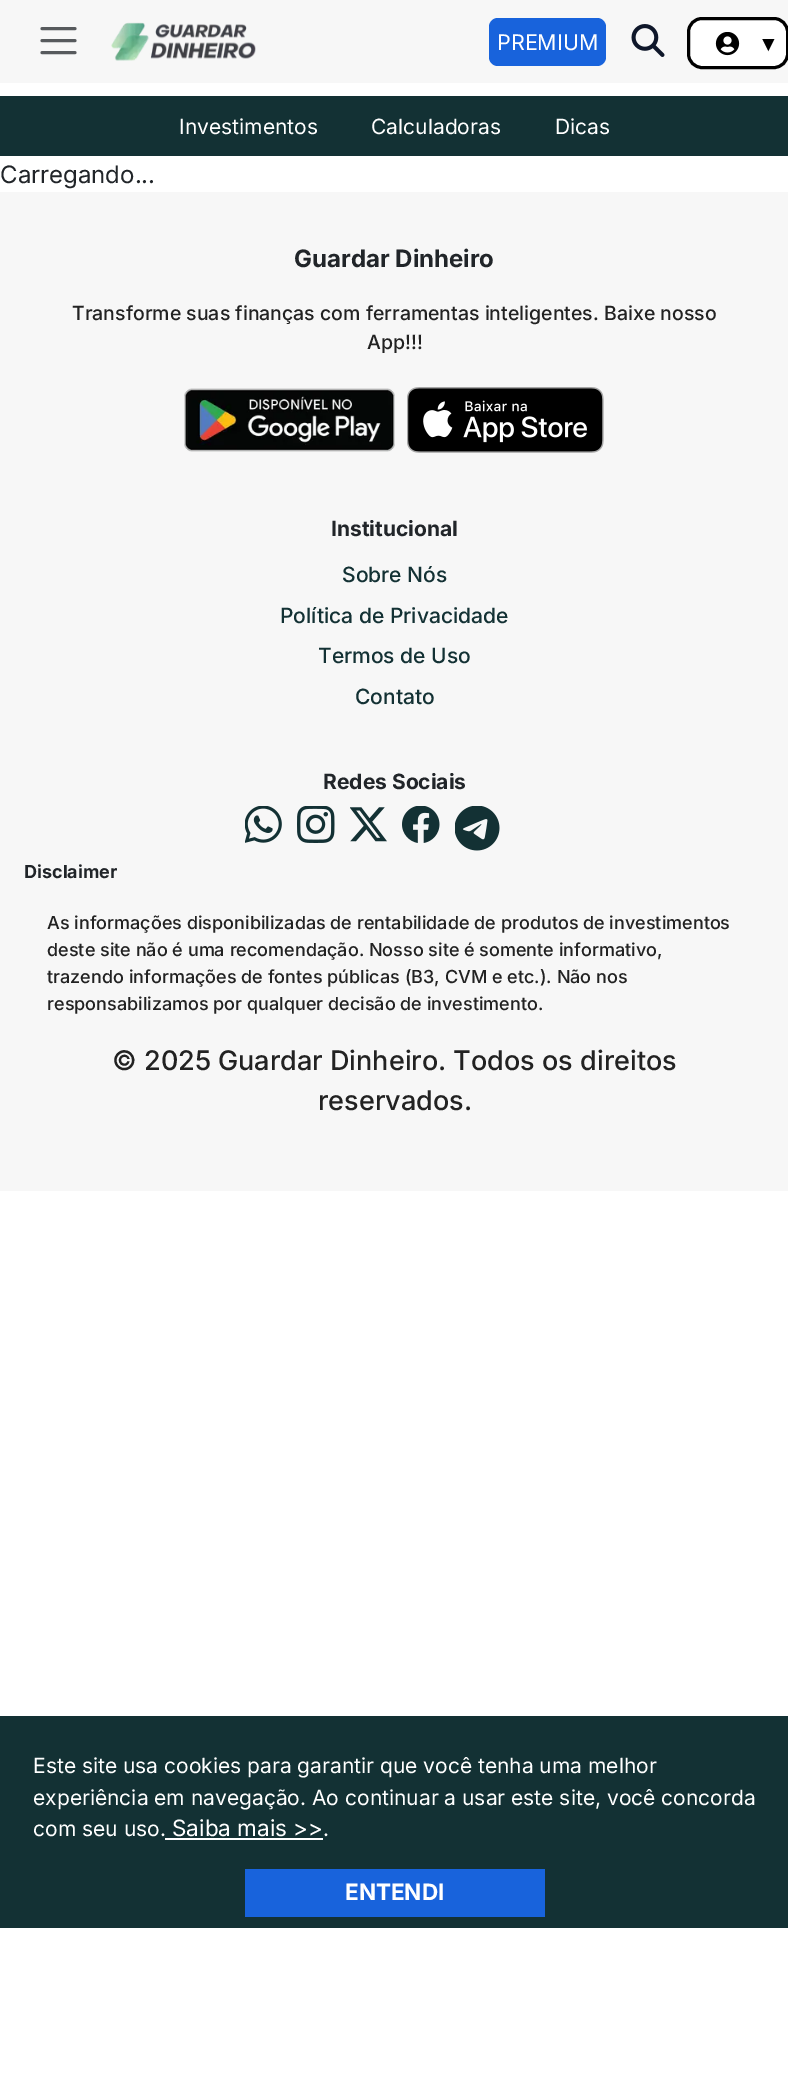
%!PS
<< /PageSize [788 2096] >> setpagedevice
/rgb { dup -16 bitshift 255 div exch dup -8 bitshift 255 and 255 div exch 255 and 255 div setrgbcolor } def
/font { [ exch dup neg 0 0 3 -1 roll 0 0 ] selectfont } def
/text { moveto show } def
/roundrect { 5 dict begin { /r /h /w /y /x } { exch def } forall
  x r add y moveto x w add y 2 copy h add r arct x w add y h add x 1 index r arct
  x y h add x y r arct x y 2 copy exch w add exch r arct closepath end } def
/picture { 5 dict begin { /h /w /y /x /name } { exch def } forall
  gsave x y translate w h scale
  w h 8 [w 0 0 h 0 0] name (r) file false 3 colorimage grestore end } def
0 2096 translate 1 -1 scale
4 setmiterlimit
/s1 { /Inter-Regular 21.5 font 16#FFFFFF rgb } def
/s2 { /LiberationSerif-Regular 21 font 16#000000 rgb } def
/s3 { /Inter-Regular 21 font 16#FFFFFF rgb } def
/s4 { /Inter-Regular 24 font 16#212529 rgb } def
/s5 { /Inter-Bold 24 font 16#212529 rgb } def
/s6 { /Inter-Medium 19.5 font 16#222222 rgb } def
/s7 { /Inter-Bold 21 font 16#212529 rgb } def
/s8 { /Inter-Medium 21 font 16#133134 rgb } def
/s9 { /Inter-Bold 18 font 16#212529 rgb } def
/s10 { /Inter-Medium 18 font 16#222222 rgb } def
/s11 { /Inter-Medium 27 font 16#222222 rgb } def
/s12 { /Inter-Regular 22.5 font 16#FFFFFF rgb } def
/s13 { /Inter-Bold 22.5 font 16#FFFFFF rgb } def
16#FFFFFF rgb
0 0 788 2096 rectfill
16#F7F7F7 rgb
0 0 788 83 rectfill
16#575A5D rgb
3 setlinewidth
1 setlinecap
42 28.5 moveto 75 28.5 lineto 42 40.5 moveto 75 40.5 lineto 42 52.5 moveto 75 52.5 lineto stroke
(pic1.raw) 111 22 145 39 picture
16#1863DC rgb
489 18 117 48 9 roundrect fill
s1
(PREMIUM) 497 50 text
(pic2.raw) 631 24 34 33 picture
688.5 18.5 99 49 13.5 roundrect gsave fill grestore
16#000000 rgb
0 setlinecap
stroke
(pic3.raw) 715 32 25 24 picture
s2
(▼) 758 51 text
16#133134 rgb
0 96 788 60 rectfill
s3
(Investimentos) 179 134 text
(Calculadoras) 371 134 text
(Dicas) 555 134 text
s4
(Carregando...) 0 183 text
16#F7F7F7 rgb
0 192 788 999 rectfill
s5
(Guardar Dinheiro) 294 267 text
s6
(Transforme suas finanças com ferramentas inteligentes. Baixe nosso) 72 320 text
(App!!!) 367 349 text
(pic4.raw) 184 388 211 64 picture
(pic5.raw) 407 387 197 66 picture
s7
(Institucional) 331 536 text
s8
(Sobre Nós) 342 582 text
(Política de Privacidade) 280 623 text
(Termos de Uso) 318 663 text
(Contato) 355 704 text
s7
(Redes Sociais) 323 789 text
(pic6.raw) 245 806 37 37 picture
(pic7.raw) 297 806 38 37 picture
(pic8.raw) 350 807 37 35 picture
(pic9.raw) 402 806 38 37 picture
(pic10.raw) 455 806 45 45 picture
s9
(Disclaimer) 24 878 text
s10
(As informações disponibilizadas de rentabilidade de produtos de investimentos) 47 929 text
(deste site não é uma recomendação. Nosso site é somente informativo,) 47 956 text
(trazendo informações de fontes públicas \(B3, CVM e etc.\). Não nos) 47 983 text
(responsabilizamos por qualquer decisão de investimento.) 47 1010 text
s11
(© 2025 Guardar Dinheiro. Todos os direitos) 112 1070 text
(reservados.) 318 1110 text
16#133134 rgb
0 1716 788 212 rectfill
s3
(Este site usa cookies para garantir que você tenha uma melhor) 33 1773 text
(experiência em navegação. Ao continuar a usar este site, você concorda) 33 1805 text
(com seu uso.) 33 1836 text
s12
(Saiba mais >>) 172 1836 text
165 1838 158 2 rectfill
s3
(.) 323 1836 text
16#1863DC rgb
245 1869 300 48 rectfill
s13
(ENTENDI) 345 1900 text
showpage
